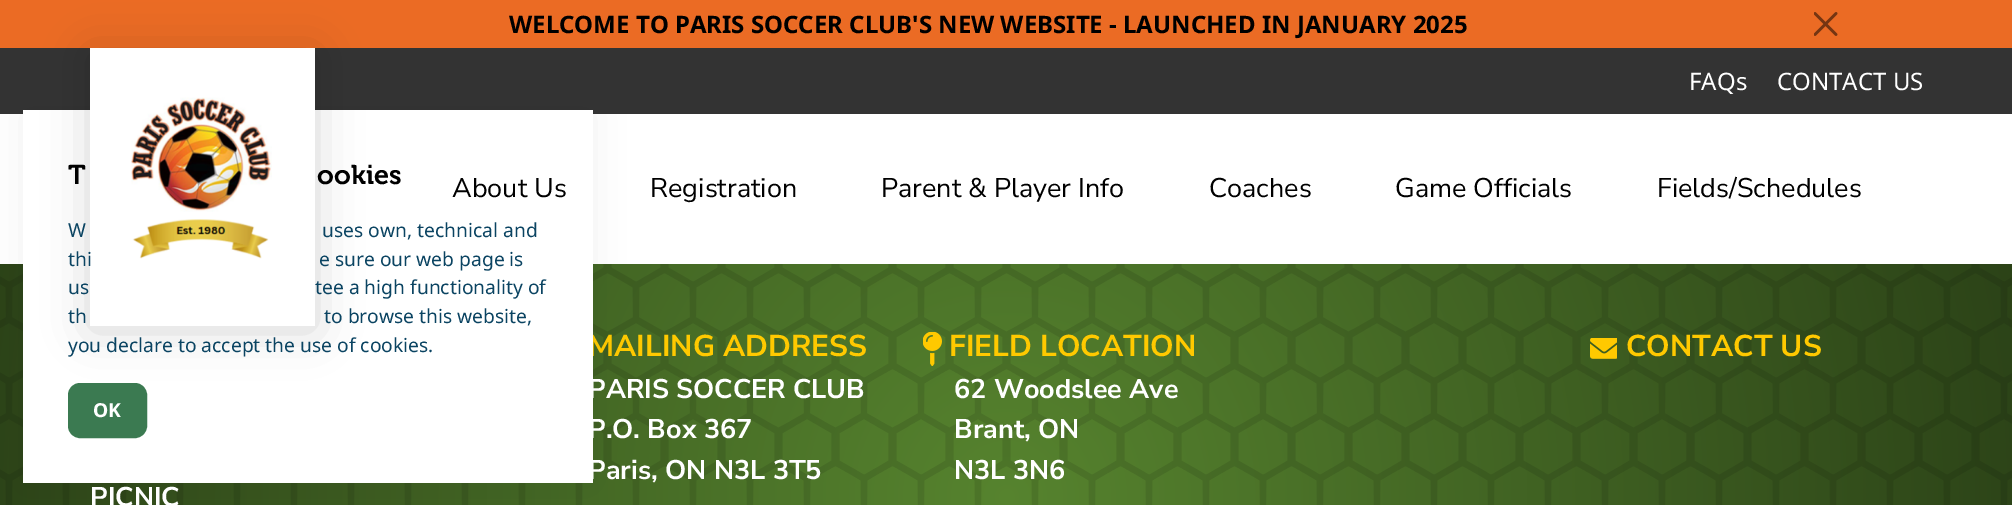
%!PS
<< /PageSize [2012 505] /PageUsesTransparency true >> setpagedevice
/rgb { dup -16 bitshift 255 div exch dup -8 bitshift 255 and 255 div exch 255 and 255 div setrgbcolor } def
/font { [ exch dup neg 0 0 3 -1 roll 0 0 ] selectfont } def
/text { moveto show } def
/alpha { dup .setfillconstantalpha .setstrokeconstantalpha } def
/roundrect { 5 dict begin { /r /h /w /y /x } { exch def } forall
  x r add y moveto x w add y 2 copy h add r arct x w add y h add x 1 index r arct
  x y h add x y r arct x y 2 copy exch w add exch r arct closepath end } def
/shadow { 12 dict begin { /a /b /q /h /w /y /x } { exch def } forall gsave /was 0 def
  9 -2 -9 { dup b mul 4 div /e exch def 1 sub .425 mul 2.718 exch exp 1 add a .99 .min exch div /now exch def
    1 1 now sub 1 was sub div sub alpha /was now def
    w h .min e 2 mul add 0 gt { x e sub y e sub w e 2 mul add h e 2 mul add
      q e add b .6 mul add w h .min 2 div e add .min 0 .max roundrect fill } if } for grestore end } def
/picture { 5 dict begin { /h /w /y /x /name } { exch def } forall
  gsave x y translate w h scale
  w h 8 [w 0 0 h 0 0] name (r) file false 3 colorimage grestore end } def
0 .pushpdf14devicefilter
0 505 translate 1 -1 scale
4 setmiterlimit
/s1 { /NotoSans-Bold 24 font 16#000000 rgb } def
/s2 { /NotoSans-Regular 24 font 16#FFFFFF rgb } def
/s3 { /NunitoSans-Bold 30 font 16#FFC900 rgb } def
/s4 { /NunitoSans-Regular 27 font 16#000000 rgb } def
/s5 { /NunitoSans-Bold 27 font 16#FFFFFF rgb } def
/s6 { /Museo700-SemiBold 27 font 16#000000 rgb } def
/s7 { /NotoSans-Regular 19.25 font 16#0B4462 rgb } def
/s8 { /NotoSans-Bold 19.25 font 16#FFFFFF rgb } def
16#FFFFFF rgb
0 0 2012 505 rectfill
16#EB6B24 rgb
0 0 2012 48 rectfill
s1
(WELCOME TO PARIS SOCCER CLUB'S NEW WEBSITE - LAUNCHED IN JANUARY 2025) 509 33 text
(pic1.raw) 1814 12 24 24 picture
16#333333 rgb
0 48 2012 66 rectfill
s2
(FAQs) 1689 90 text
(CONTACT US) 1777 90 text
gsave 0 264 moveto 2012 264 lineto 2012 505 lineto 0 505 lineto closepath clip newpath 1007 496 translate 1033 1033 scale
<< /ShadingType 3 /ColorSpace /DeviceRGB /Coords [0 0 0 0 0 1] /Extend [true true] /Function << /FunctionType 2 /Domain [0 1] /C0 [0.337 0.514 0.18] /C1 [0.169 0.259 0.09] /N 1 >> >> shfill grestore
(pic3.raw) 0 264 2012 241 picture
s3
(MAILING ADDRESS) 588 356 text
16#000000 rgb
23 111 570 374 0 19.5 0.06 shadow
16#FFFFFF rgb
23 110 570 373 rectfill
16#3B7A51 rgb
69 384 77 53 11 roundrect gsave fill grestore
2 setlinewidth
stroke
16#000000 rgb
90 53 225 277 0 22.5 0.16 shadow
16#FFFFFF rgb
90 48 225 278 rectfill
(pic2.raw) 131 97 141 162 picture
s4
(About Us) 452 197 text
(Registration) 650 197 text
(Parent & Player Info) 881 197 text
(Coaches) 1209 197 text
(Game Officials) 1395 197 text
(Fields/Schedules) 1657 197 text
s5
(PARIS SOCCER CLUB) 588 398 text
(P.O. Box 367) 588 438 text
(Paris, ON N3L 3T5) 588 479 text
(pic4.raw) 923 332 19 34 picture
s3
(FIELD LOCATION) 949 356 text
s5
(62 Woodslee Ave) 954 398 text
(Brant, ON) 954 438 text
(N3L 3N6) 954 479 text
(pic5.raw) 1590 338 27 21 picture
s3
(CONTACT US) 1626 356 text
s5
(PICNIC) 90 506 text
s6
(T) 68 184 text
(ookies) 317 184 text
s7
(W) 68 237 text
(uses own, technical and) 322 237 text
(thi) 68 266 text
(e sure our web page is) 319 266 text
(us) 68 294 text
(tee a high functionality of) 315 294 text
(th) 68 323 text
(to browse this website,) 324 323 text
(you declare to accept the use of cookies.) 68 352 text
s8
(OK) 93 417 text
.poppdf14devicefilter showpage
